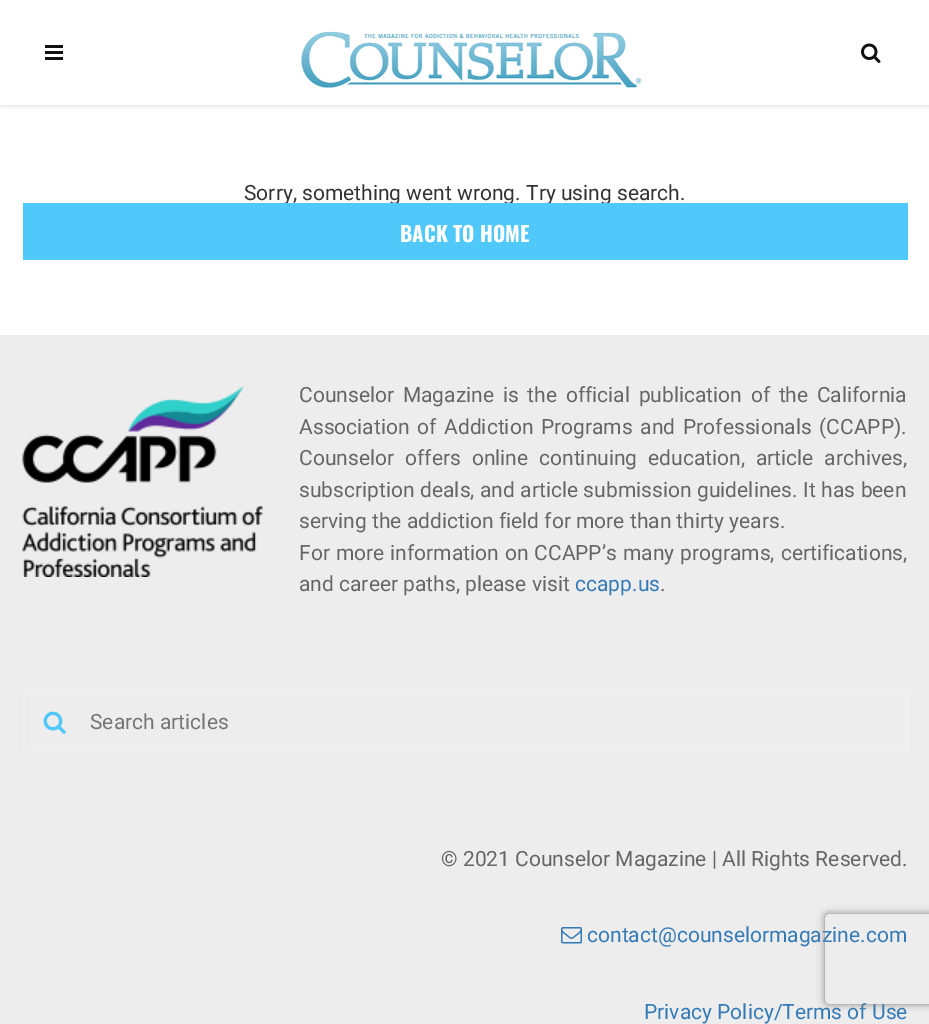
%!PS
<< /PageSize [929 1024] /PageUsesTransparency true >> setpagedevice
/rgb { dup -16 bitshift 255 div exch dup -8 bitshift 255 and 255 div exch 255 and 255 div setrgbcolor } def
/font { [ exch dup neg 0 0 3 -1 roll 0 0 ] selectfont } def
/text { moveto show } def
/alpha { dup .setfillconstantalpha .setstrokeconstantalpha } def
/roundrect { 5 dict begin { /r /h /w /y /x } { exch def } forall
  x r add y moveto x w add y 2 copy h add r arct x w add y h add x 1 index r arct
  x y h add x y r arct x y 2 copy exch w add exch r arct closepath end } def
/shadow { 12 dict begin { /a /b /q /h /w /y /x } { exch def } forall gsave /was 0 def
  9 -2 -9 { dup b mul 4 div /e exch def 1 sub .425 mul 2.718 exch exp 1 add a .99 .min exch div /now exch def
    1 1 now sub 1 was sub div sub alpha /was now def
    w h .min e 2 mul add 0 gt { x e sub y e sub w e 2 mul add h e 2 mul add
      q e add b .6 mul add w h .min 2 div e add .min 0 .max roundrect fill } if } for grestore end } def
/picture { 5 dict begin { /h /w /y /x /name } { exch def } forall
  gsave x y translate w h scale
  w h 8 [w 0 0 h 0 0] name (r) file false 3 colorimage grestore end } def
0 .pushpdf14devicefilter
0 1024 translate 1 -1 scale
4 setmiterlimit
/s1 { /Roboto-Regular 21 font 16#333333 rgb } def
/s2 { /Oswald-Bold 21 font 16#FFFFFF rgb } def
/s3 { /Roboto-Regular 21 font 16#666666 rgb } def
/s4 { /Roboto-Regular 21 font 16#337AB7 rgb } def
/s5 { /Roboto-Regular 21 font 16#757575 rgb } def
16#FFFFFF rgb
0 0 929 1024 rectfill
16#EAEAEA rgb
0 2 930 105 0 1.5 1 shadow
16#FFFFFF rgb
0 0 929 105 rectfill
16#111111 rgb
45 45 18 3 rectfill
45 51 18 3 rectfill
45 57 18 3 rectfill
(pic1.raw) 301 31 341 57 picture
(pic2.raw) 861 43 20 20 picture
s1
(Sorry, something went wrong. Try using search.) 244 200 text
16#51C8FA rgb
23 203 885 57 rectfill
s2
(BACK TO HOME) 400 242 text
16#EDEDED rgb
0 335 929 689 rectfill
(pic3.raw) 22 386 241 191 picture
/Roboto-Regular 21 font
16#666666 rgb
299 402 moveto 3.5 0 32 (Counselor Magazine is the official publication of the California) widthshow
299 434 moveto 2.5 0 32 (Association of Addiction Programs and Professionals \(CCAPP\).) widthshow
299 465 moveto 5.75 0 32 (Counselor offers online continuing education, article archives,) widthshow
299 497 moveto 0.25 0 32 (subscription deals, and article submission guidelines. It has been) widthshow
(serving the addiction field for more than thirty years.) 299 528 text
299 560 moveto 0.75 0 32 (For more information on CCAPP’s many programs, certifications,) widthshow
(and career paths, please visit) 299 591 text
s4
(ccapp.us) 575 591 text
s3
(.) 660 591 text
16#F0F0F0 rgb
2 setlinewidth
24 691 883 61 rectstroke
(pic4.raw) 43 711 23 23 picture
s5
(Search articles) 90 729 text
s3
(© 2021 Counselor Magazine | All Rights Reserved.) 441 866 text
(pic5.raw) 561 927 21 17 picture
s4
(contact@counselormagazine.com) 587 942 text
(Privacy Policy/Terms of Use) 644 1019 text
gsave
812 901 moveto 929 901 lineto 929 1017 lineto 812 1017 lineto closepath 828 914 moveto 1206 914 lineto 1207.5 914 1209 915.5 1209 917 curveto 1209 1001 lineto 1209 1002.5 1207.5 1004 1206 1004 curveto 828 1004 lineto 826.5 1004 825 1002.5 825 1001 curveto 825 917 lineto 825 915.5 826.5 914 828 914 curveto closepath eoclip newpath
16#808080 rgb
825 914 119 90 3 4 1 shadow
grestore
.poppdf14devicefilter showpage
